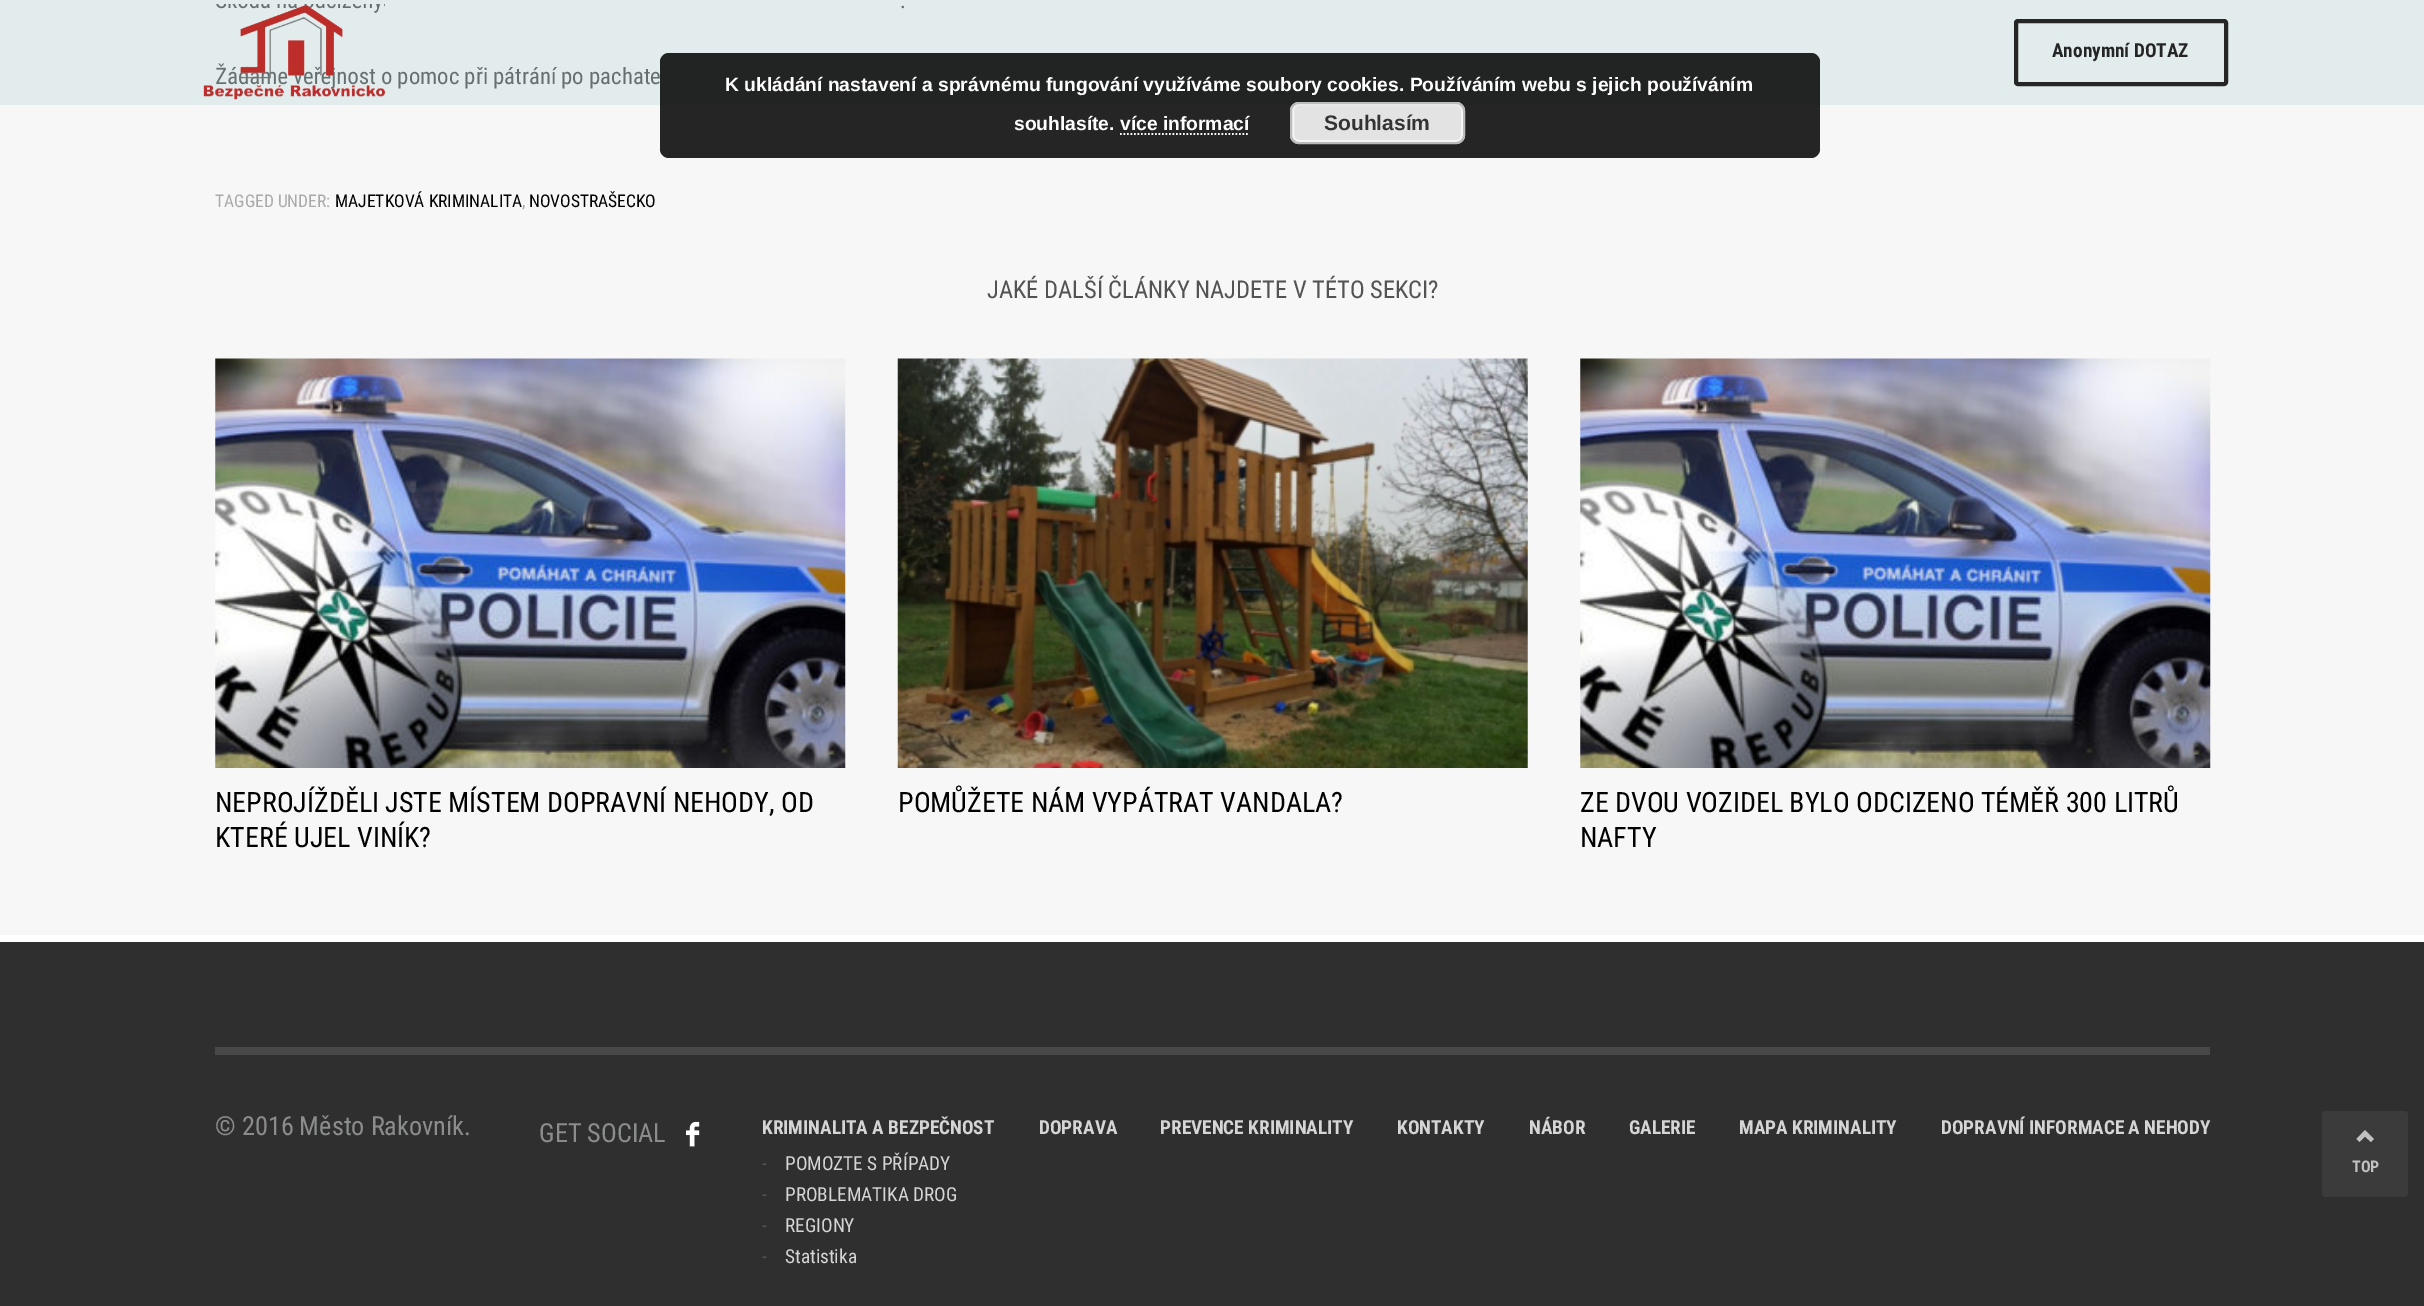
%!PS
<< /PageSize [2424 1306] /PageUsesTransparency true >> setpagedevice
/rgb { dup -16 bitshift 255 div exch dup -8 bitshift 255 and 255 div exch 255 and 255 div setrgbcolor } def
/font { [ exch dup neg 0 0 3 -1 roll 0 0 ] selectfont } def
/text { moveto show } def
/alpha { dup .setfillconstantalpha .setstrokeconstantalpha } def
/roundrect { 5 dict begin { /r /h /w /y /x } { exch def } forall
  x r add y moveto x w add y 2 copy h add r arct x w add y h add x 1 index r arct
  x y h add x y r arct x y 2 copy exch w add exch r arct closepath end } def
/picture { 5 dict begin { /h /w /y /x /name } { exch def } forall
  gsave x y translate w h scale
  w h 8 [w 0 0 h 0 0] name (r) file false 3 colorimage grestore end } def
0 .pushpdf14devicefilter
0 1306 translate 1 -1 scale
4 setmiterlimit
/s1 { /RobotoCondensed-Regular 22.75 font 16#656F6F rgb } def
/s2 { /RobotoCondensed-Regular 17.5 font 16#AAAAAA rgb } def
/s3 { /RobotoCondensed-Regular 17.5 font 16#000000 rgb } def
/s4 { /RobotoCondensed-Regular 24.5 font 16#535353 rgb } def
/s5 { /RobotoCondensed-Regular 28 font 16#000000 rgb } def
/s6 { /RobotoCondensed-Bold 19.25 font 16#252525 rgb } def
/s7 { /RobotoCondensed-Regular 26.25 font 16#8B8C8D rgb } def
/s8 { /RobotoCondensed-Bold 19.25 font 16#D5D5D5 rgb } def
/s9 { /RobotoCondensed-Regular 19.25 font 16#535353 rgb } def
/s10 { /RobotoCondensed-Regular 19.25 font 16#D5D5D5 rgb } def
/s11 { /LiberationSans-Bold 19.25 font 16#FFFFFF rgb } def
/s12 { /LiberationSans-Bold 21 font 16#333333 rgb } def
/s13 { /RobotoCondensed-Bold 16 font 16#C1C1C1 rgb } def
16#F7F7F7 rgb
0 0 2424 1306 rectfill
16#E2ECEC rgb
0 0 2424 105 rectfill
s1
(.) 900 8 text
(Žádáme veřejnost o pomoc při pátrání po pachate) 215 84 text
s2
(TAGGED UNDER:) 215 207 text
s3
(MAJETKOVÁ KRIMINALITA) 335 207 text
s2
(,) 522 207 text
s3
(NOVOSTRAŠECKO) 529 207 text
s4
(JAKÉ DALŠÍ ČLÁNKY NAJDETE V TÉTO SEKCI?) 987 298 text
(pic1.raw) 215 358 631 410 picture
s5
(NEPROJÍŽDĚLI JSTE MÍSTEM DOPRAVNÍ NEHODY, OD) 215 812 text
(KTERÉ UJEL VINÍK?) 215 847 text
(pic2.raw) 897 358 631 410 picture
(POMŮŽETE NÁM VYPÁTRAT VANDALA?) 898 812 text
(pic1.raw) 1580 358 631 410 picture
(ZE DVOU VOZIDEL BYLO ODCIZENO TÉMĚŘ 300 LITRŮ) 1580 812 text
(NAFTY) 1580 847 text
(pic3.raw) 203 4 182 96 picture
16#252525 rgb
4 setlinewidth
2016 21 210 63 2 roundrect stroke
s6
(Anonymní DOTAZ) 2052 57 text
16#2F2F2F rgb
0 942 2424 364 rectfill
16#FFFFFF rgb
0 935 2424 7 rectfill
16#484848 rgb
215 1047 1995 8 rectfill
s7
(© 2016 Město Rakovník.) 215 1135 text
(GET SOCIAL) 539 1142 text
(pic4.raw) 686 1121 14 26 picture
s8
(KRIMINALITA A BEZPEČNOST) 762 1134 text
s9
(-) 762 1170 text
s10
(POMOZTE S PŘÍPADY) 785 1170 text
s9
(-) 762 1201 text
s10
(PROBLEMATIKA DROG) 785 1201 text
s9
(-) 762 1232 text
s10
(REGIONY) 785 1232 text
s9
(-) 762 1263 text
s10
(Statistika) 785 1263 text
s8
(DOPRAVA) 1039 1134 text
(PREVENCE KRIMINALITY) 1160 1134 text
(KONTAKTY) 1397 1134 text
(NÁBOR) 1529 1134 text
(GALERIE) 1629 1134 text
(MAPA KRIMINALITY) 1739 1134 text
(DOPRAVNÍ INFORMACE A NEHODY) 1941 1134 text
0.85 alpha
16#000000 rgb
660 53 1160 105 9 roundrect fill
1 alpha
s11
(K ukládání nastavení a správnému fungování využíváme soubory cookies. Používáním webu s jejich používáním) 725 91 text
(souhlasíte. více informací) 1014 130 text
16#E3E3E3 rgb
1290 102 175 42 9 roundrect fill
16#F6F6F6 rgb
2 setlinewidth
1293 104 169 37 6 roundrect stroke
16#BBBBBB rgb
1291 103 173 40 8 roundrect stroke
s12
(Souhlasím) 1324 130 text
16#FFFFFF rgb
1.8 setlinewidth
[1.75 1.75] 0 setdash
1120 134 moveto 1249.5 134 lineto stroke
16#3B3B3B rgb
2322 1111 86 86 4 roundrect fill
16#C1C1C1 rgb
2365 1130 moveto 2374 1139 lineto 2371 1142 lineto 2365 1136.5 lineto 2359.5 1142 lineto 2356.5 1139 lineto closepath fill
s13
(TOP) 2352 1172 text
.poppdf14devicefilter showpage
